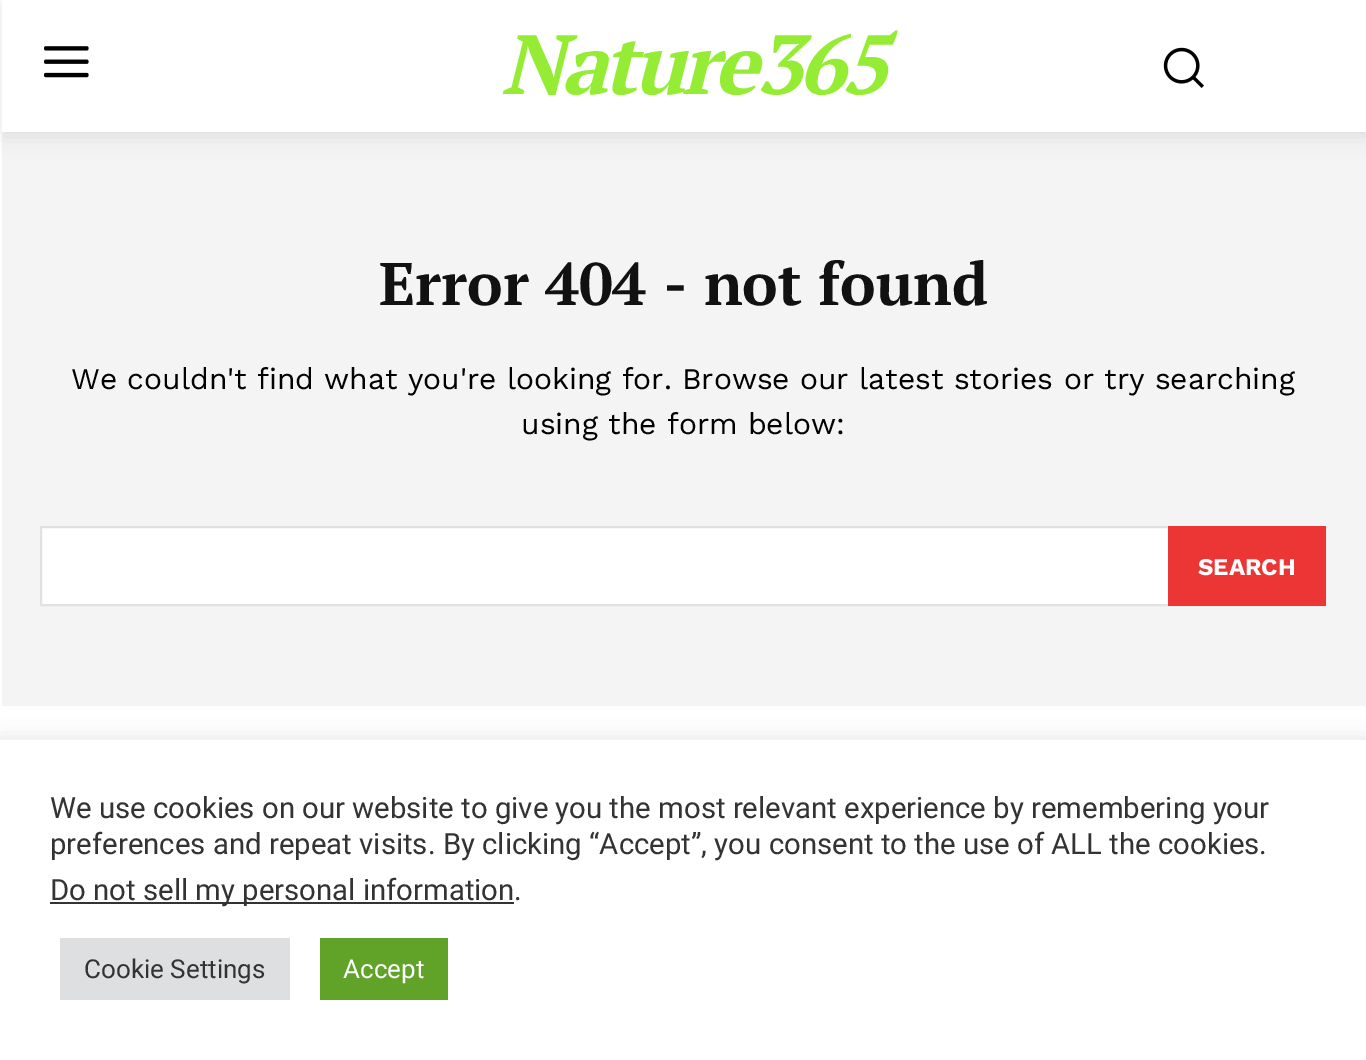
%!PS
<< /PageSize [1366 1060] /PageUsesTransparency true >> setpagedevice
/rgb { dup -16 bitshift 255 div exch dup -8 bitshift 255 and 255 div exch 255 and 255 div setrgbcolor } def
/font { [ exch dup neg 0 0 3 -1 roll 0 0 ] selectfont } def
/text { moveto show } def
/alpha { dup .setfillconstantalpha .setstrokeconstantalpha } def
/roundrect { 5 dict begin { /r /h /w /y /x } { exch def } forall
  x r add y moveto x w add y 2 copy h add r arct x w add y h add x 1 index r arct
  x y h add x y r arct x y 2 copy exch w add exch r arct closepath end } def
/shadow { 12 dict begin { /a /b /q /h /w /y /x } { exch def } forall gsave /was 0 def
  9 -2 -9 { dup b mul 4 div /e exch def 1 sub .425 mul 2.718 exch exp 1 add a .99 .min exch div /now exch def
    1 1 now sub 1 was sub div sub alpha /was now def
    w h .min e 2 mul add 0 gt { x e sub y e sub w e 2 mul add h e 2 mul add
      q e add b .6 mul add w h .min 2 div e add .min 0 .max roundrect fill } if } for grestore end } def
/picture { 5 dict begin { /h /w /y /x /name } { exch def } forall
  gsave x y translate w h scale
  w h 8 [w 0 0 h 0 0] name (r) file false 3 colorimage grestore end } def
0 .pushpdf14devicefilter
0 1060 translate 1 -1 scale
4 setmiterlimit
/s1 { /PTSerif-Bold 60 font 16#111111 rgb } def
/s2 { /WorkSans-Regular 30 font 16#000000 rgb } def
/s3 { /WorkSans-Bold 24 font 16#FFFFFF rgb } def
/s4 { /Roboto-Regular 29.35 font 16#333333 rgb } def
/s5 { /Roboto-Regular 26 font 16#333333 rgb } def
/s6 { /Roboto-Regular 26 font 16#FFFFFF rgb } def
16#FFFFFF rgb
0 0 1366 1060 rectfill
(pic1.raw) 44 46 45 32 picture
(pic2.raw) 1163 47 41 41 picture
16#F4F4F4 rgb
2 132 1364 574 rectfill
gsave
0 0 moveto 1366 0 lineto 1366 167 lineto 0 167 lineto closepath 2 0 moveto 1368 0 lineto 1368 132 lineto 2 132 lineto closepath eoclip newpath
16#000000 rgb
2 4 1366 132 0 10 0.09 shadow
grestore
/PTSerif-BoldItalic 84 font
16#95EC34 rgb
501 94 moveto -4 0 (Nature365) ashow
s1
(Error 404 - not found) 379 305 text
s2
(We couldn't find what you're looking for. Browse our latest stories or try searching) 71 389 text
(using the form below:) 521 434 text
16#FFFFFF rgb
42 528 1126 76 rectfill
16#E1E1E1 rgb
2 setlinewidth
41 527 1284 78 rectstroke
16#EC3535 rgb
1168 526 158 80 rectfill
s3
(SEARCH) 1198 575 text
16#ACABAB rgb
0 738 1366 320 0 10 0.3 shadow
16#FFFFFF rgb
0 740 1366 320 rectfill
s4
(We use cookies on our website to give you the most relevant experience by remembering your) 50 818 text
(preferences and repeat visits. By clicking “Accept”, you consent to the use of ALL the cookies.) 50 854 text
50 902 464 2 rectfill
(Do not sell my personal information) 50 900 text
(.) 514 900 text
16#DEDFE0 rgb
60 938 230 62 rectfill
s5
(Cookie Settings) 84 978 text
16#61A229 rgb
320 938 128 62 rectfill
s6
(Accept) 343 978 text
.poppdf14devicefilter showpage
